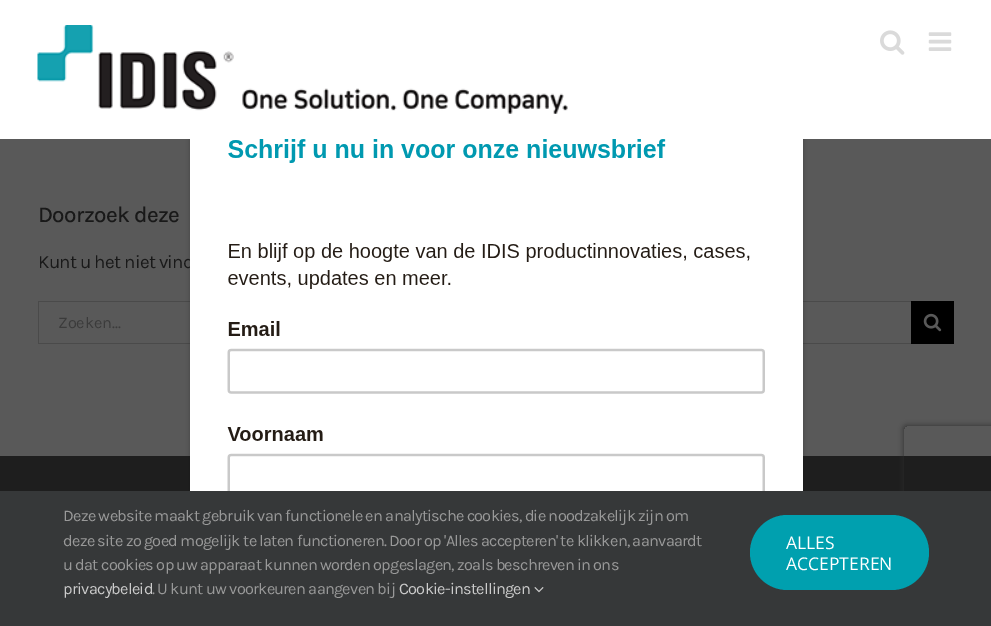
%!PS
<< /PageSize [991 626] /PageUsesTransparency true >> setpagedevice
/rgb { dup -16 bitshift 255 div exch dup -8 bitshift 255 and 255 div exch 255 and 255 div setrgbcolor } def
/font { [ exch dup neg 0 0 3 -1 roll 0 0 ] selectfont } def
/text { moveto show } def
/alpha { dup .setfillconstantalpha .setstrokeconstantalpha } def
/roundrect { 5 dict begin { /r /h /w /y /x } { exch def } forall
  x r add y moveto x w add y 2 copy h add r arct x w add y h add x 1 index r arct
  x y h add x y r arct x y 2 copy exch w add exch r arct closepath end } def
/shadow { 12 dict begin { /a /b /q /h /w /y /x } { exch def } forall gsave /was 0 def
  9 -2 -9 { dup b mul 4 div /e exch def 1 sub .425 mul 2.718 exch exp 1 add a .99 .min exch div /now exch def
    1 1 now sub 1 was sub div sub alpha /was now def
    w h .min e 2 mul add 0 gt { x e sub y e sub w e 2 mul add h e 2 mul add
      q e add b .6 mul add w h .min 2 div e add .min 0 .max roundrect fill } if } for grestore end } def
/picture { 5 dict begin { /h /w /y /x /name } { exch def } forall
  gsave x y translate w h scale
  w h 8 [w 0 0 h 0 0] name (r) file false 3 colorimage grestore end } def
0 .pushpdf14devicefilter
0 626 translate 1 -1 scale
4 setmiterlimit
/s1 { /Karla-Regular 16.25 font 16#3B3B3B rgb } def
/s2 { /OpenSans-Regular 17.5 font 16#FFFFFF rgb } def
16#595959 rgb
0 0 991 626 rectfill
16#4A4A4A rgb
38 301 873 1 rectfill
38 343 873 1 rectfill
16#1E1E1E rgb
0 456 991 35 rectfill
16#000000 rgb
190 96 613 458 0 2.5 0.2 shadow
16#FFFFFF rgb
0 0 991 139 rectfill
(pic1.raw) 37 25 531 89 picture
(pic2.raw) 880 30 25 25 picture
(pic3.raw) 928 32 24 19 picture
/Karla-Medium 22.5 font
16#191919 rgb
38 222 moveto -0.7 0 (Doorzoek deze) ashow
/Karla-Regular 18.75 font
38 268 moveto -0.7 0 (Kunt u het niet vind) ashow
16#4A4A4A rgb
38 301 1 43 rectfill
s1
(Zoeken...) 58 328 text
16#000000 rgb
911 301 43 43 rectfill
(pic4.raw) 923 313 19 19 picture
(pic5.raw) 190 139 613 352 picture
gsave
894 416 moveto 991 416 lineto 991 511 lineto 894 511 lineto closepath 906.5 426 moveto 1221.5 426 lineto 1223 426 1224 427 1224 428.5 curveto 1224 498.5 lineto 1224 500 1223 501 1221.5 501 curveto 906.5 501 lineto 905 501 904 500 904 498.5 curveto 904 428.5 lineto 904 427 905 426 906.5 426 curveto closepath eoclip newpath
16#2D2D2D rgb
904 426 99 75 2.5 3 1 shadow
grestore
16#363839 rgb
0 491 991 135 rectfill
16#999999 rgb
63 521 moveto -0.7 0 (Deze website maakt gebruik van functionele en analytische cookies, die noodzakelijk zijn om) ashow
63 546 moveto -0.7 0 (deze site zo goed mogelijk te laten functioneren. Door op 'Alles accepteren' te klikken, aanvaardt) ashow
63 570 moveto -0.7 0 (u dat cookies op uw apparaat kunnen worden opgeslagen, zoals beschreven in ons) ashow
16#CCCCCC rgb
63 594 moveto -0.7 0 (privacybeleid) ashow
16#999999 rgb
152 594 moveto -0.7 0 (. U kunt uw voorkeuren aangeven bij) ashow
16#CCCCCC rgb
399 594 moveto -0.7 0 (Cookie-instellingen) ashow
(pic6.raw) 534 587 10 6 picture
16#00A0AF rgb
750 515 179 75 37.5 roundrect fill
s2
(ALLES) 786 549 text
(ACCEPTEREN) 786 570 text
.poppdf14devicefilter showpage
